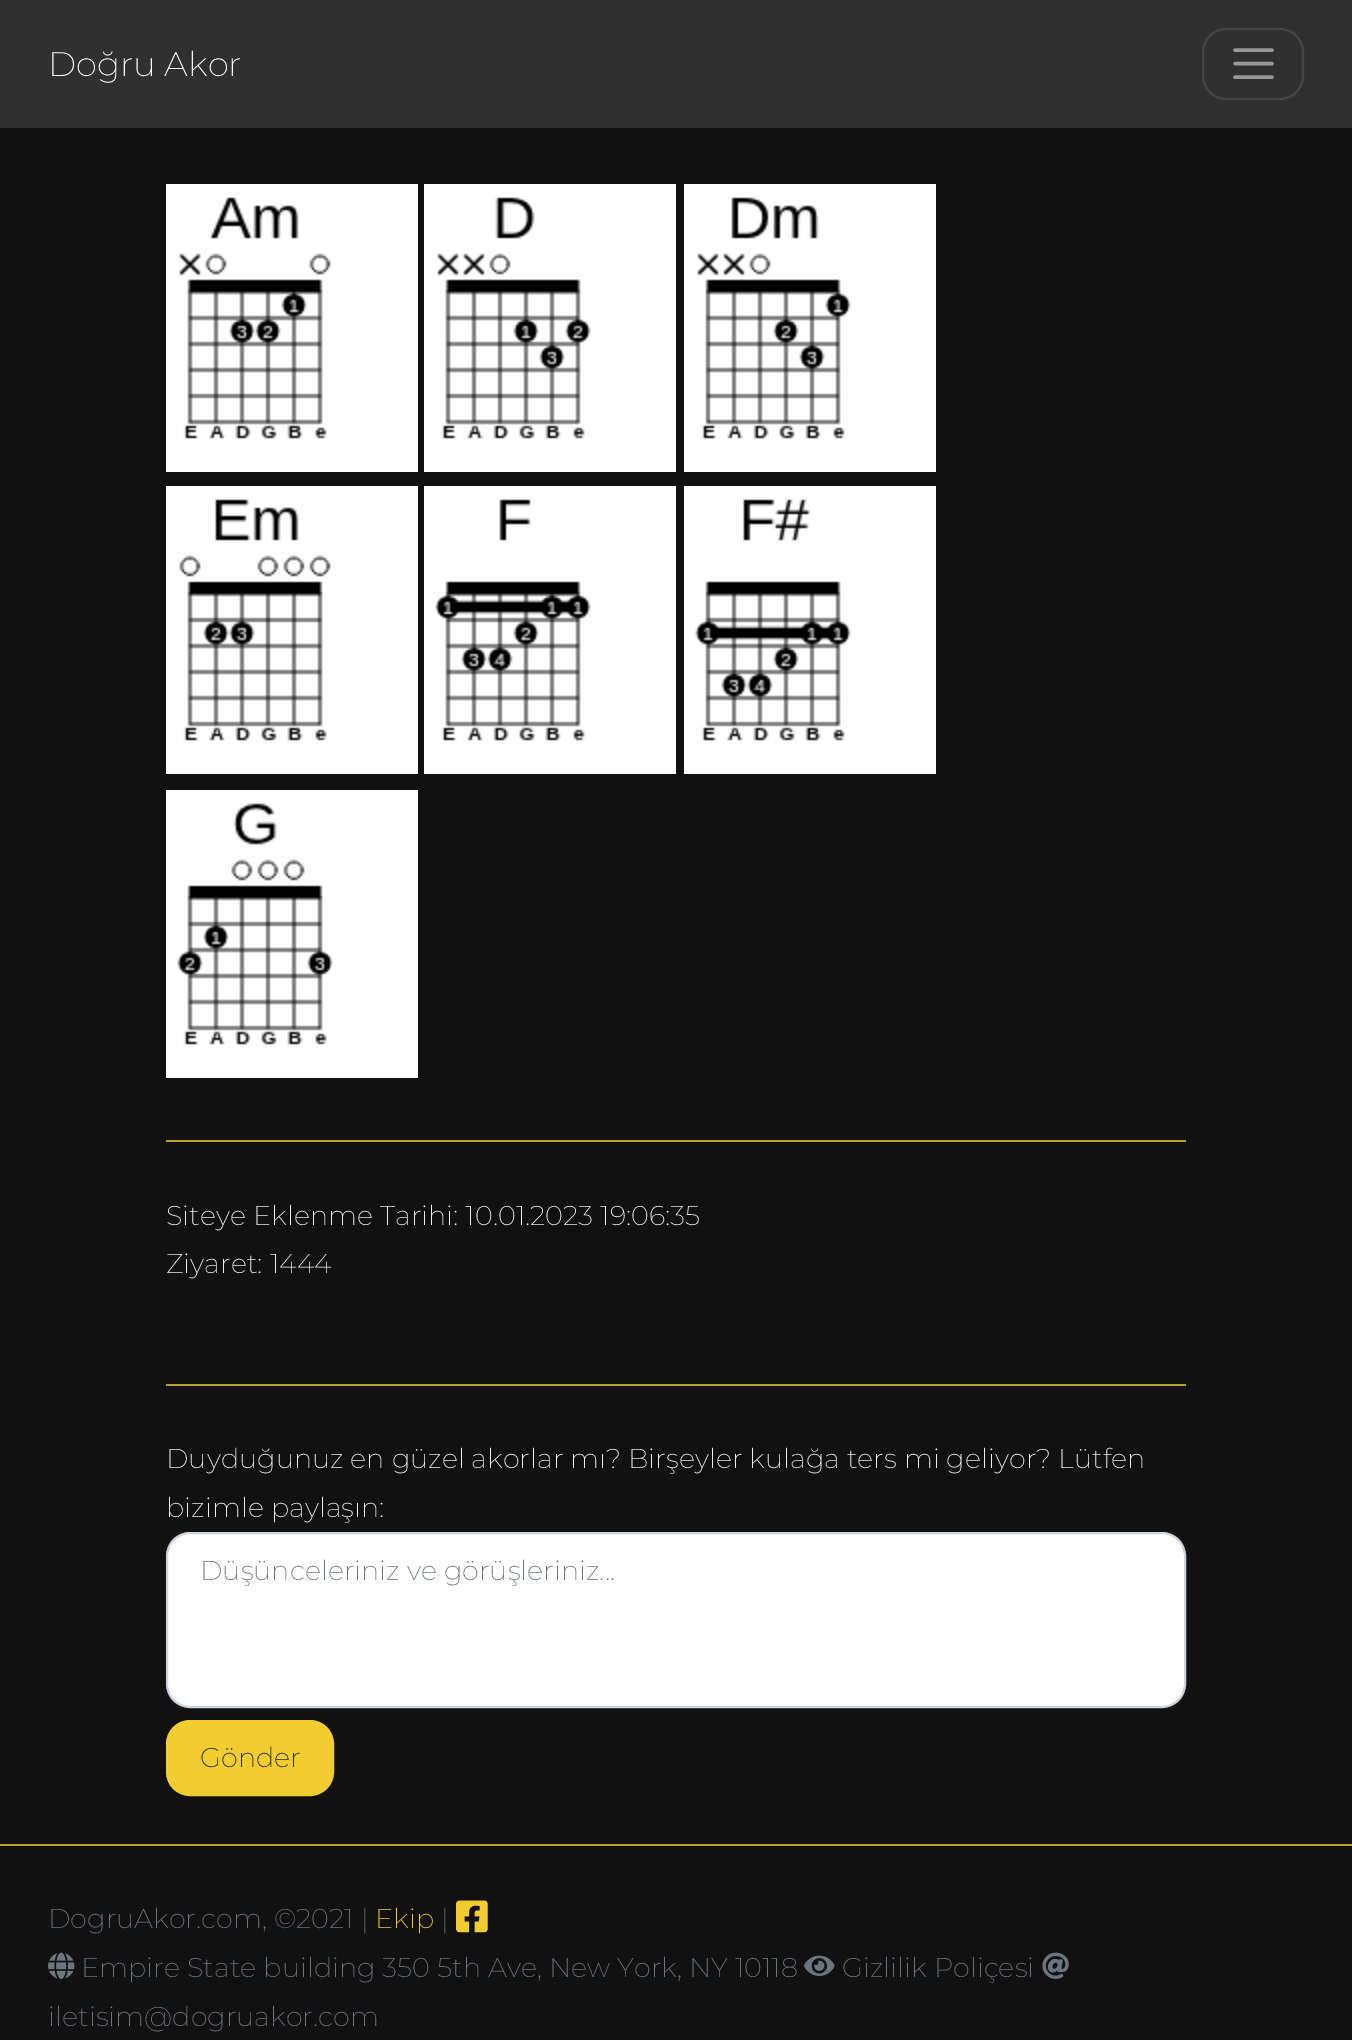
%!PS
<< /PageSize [1352 2040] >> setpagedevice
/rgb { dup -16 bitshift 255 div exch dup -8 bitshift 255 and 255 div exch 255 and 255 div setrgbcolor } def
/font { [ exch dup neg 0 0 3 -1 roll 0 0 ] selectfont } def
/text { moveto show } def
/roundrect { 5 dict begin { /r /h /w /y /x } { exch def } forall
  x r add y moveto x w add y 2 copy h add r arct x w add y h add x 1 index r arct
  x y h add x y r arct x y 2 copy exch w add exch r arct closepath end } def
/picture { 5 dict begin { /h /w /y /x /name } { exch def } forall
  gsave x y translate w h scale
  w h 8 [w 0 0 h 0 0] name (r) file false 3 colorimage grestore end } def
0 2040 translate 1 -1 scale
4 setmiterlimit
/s1 { /Montserrat-Thin 34 font 16#FFFFFF rgb } def
/s2 { /Montserrat-Thin 27.2 font 16#EFEFEF rgb } def
/s3 { /Montserrat-Thin 27.2 font 16#6C757D rgb } def
/s4 { /Montserrat-Thin 27.2 font 16#212529 rgb } def
/s5 { /Montserrat-Thin 27.2 font 16#F1CD31 rgb } def
16#111111 rgb
0 0 1352 2040 rectfill
16#303030 rgb
0 0 1352 128 rectfill
s1
(Doğru Akor) 48 76 text
16#454545 rgb
2 setlinewidth
1203 29 100 70 23 roundrect stroke
16#989898 rgb
3.4 setlinewidth
1 setlinecap
1235 50 moveto 1272 50 lineto 1235 63.5 moveto 1272 63.5 lineto 1235 77 moveto 1272 77 lineto stroke
(pic1.raw) 166 184 252 288 picture
(pic2.raw) 424 184 252 288 picture
(pic3.raw) 684 184 252 288 picture
(pic4.raw) 166 486 252 288 picture
(pic5.raw) 424 486 252 288 picture
(pic6.raw) 684 486 252 288 picture
(pic7.raw) 166 790 252 288 picture
16#B99E29 rgb
166 1140 1020 2 rectfill
s2
(Siteye Eklenme Tarihi: 10.01.2023 19:06:35) 166 1225 text
(Ziyaret: 1444) 166 1273 text
16#B99E29 rgb
166 1384 1020 2 rectfill
s2
(Duyduğunuz en güzel akorlar mı? Birşeyler kulağa ters mi geliyor? Lütfen) 166 1468 text
(bizimle paylaşın:) 166 1517 text
16#FFFFFF rgb
167 1533 1018 174 23 roundrect gsave fill grestore
16#CED4DA rgb
2 setlinewidth
0 setlinecap
stroke
s3
(Düşünceleriniz ve görüşleriniz...) 200 1580 text
16#F1CD31 rgb
167 1721 166 74 23 roundrect gsave fill grestore
stroke
s4
(Gönder) 200 1767 text
16#B99E29 rgb
0 1844 1352 2 rectfill
s3
(DogruAkor.com, ©2021 |) 48 1928 text
s5
(Ekip) 375 1928 text
s3
(|) 441 1928 text
(pic8.raw) 456 1900 32 33 picture
(pic9.raw) 48 1952 27 27 picture
(Empire State building 350 5th Ave, New York, NY 10118) 81 1977 text
(pic10.raw) 804 1955 31 21 picture
(Gizlilik Poliçesi) 842 1977 text
(pic11.raw) 1042 1952 27 27 picture
(iletisim@dogruakor.com) 48 2026 text
showpage
